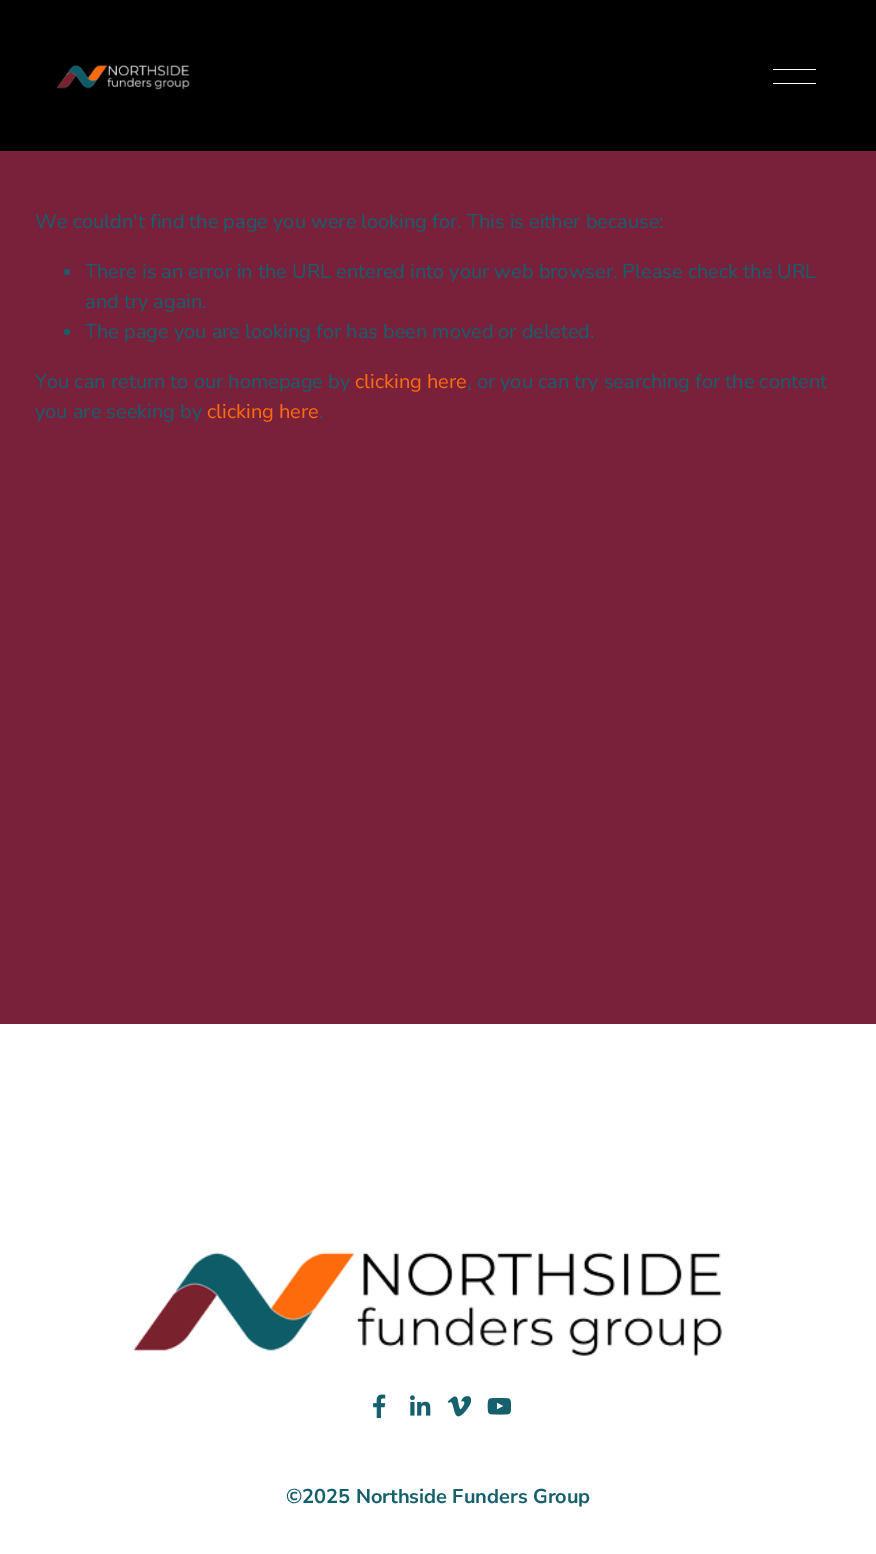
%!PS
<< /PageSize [876 1554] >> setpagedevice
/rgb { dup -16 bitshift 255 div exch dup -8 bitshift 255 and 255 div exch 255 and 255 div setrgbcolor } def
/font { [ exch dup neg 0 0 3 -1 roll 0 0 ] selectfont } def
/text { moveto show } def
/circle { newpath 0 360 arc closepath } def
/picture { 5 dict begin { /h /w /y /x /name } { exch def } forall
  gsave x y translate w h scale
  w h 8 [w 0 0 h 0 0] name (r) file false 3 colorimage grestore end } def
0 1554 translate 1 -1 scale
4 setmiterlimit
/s1 { /NunitoSans-Regular 20 font 16#15606C rgb } def
/s2 { /NunitoSans-Regular 20 font 16#FE6B0C rgb } def
/s3 { /NunitoSans-Bold 20 font 16#15606C rgb } def
16#79213A rgb
0 0 876 1554 rectfill
16#000000 rgb
0 0 876 151 rectfill
(pic1.raw) 57 64 133 26 picture
16#FFFFFF rgb
773 69 43 1 rectfill
773 83 43 1 rectfill
s1
(We couldn't find the page you were looking for. This is either because:) 35 228 text
67 272 3 circle fill
(There is an error in the URL entered into your web browser. Please check the URL) 85 278 text
(and try again.) 85 308 text
67 332 3 circle fill
(The page you are looking for has been moved or deleted.) 85 338 text
(You can return to our homepage by) 35 388 text
s2
(clicking here) 355 388 text
s1
(, or you can try searching for the content) 467 388 text
(you are seeking by) 35 418 text
s2
(clicking here) 207 418 text
s1
(.) 319 418 text
16#FFFFFF rgb
0 1024 876 530 rectfill
(pic2.raw) 133 1252 590 104 picture
(pic3.raw) 373 1394 13 24 picture
(pic4.raw) 410 1395 21 21 picture
(pic5.raw) 447 1396 24 21 picture
(pic6.raw) 487 1398 24 17 picture
s3
(©2025 Northside Funders Group) 286 1503 text
showpage
